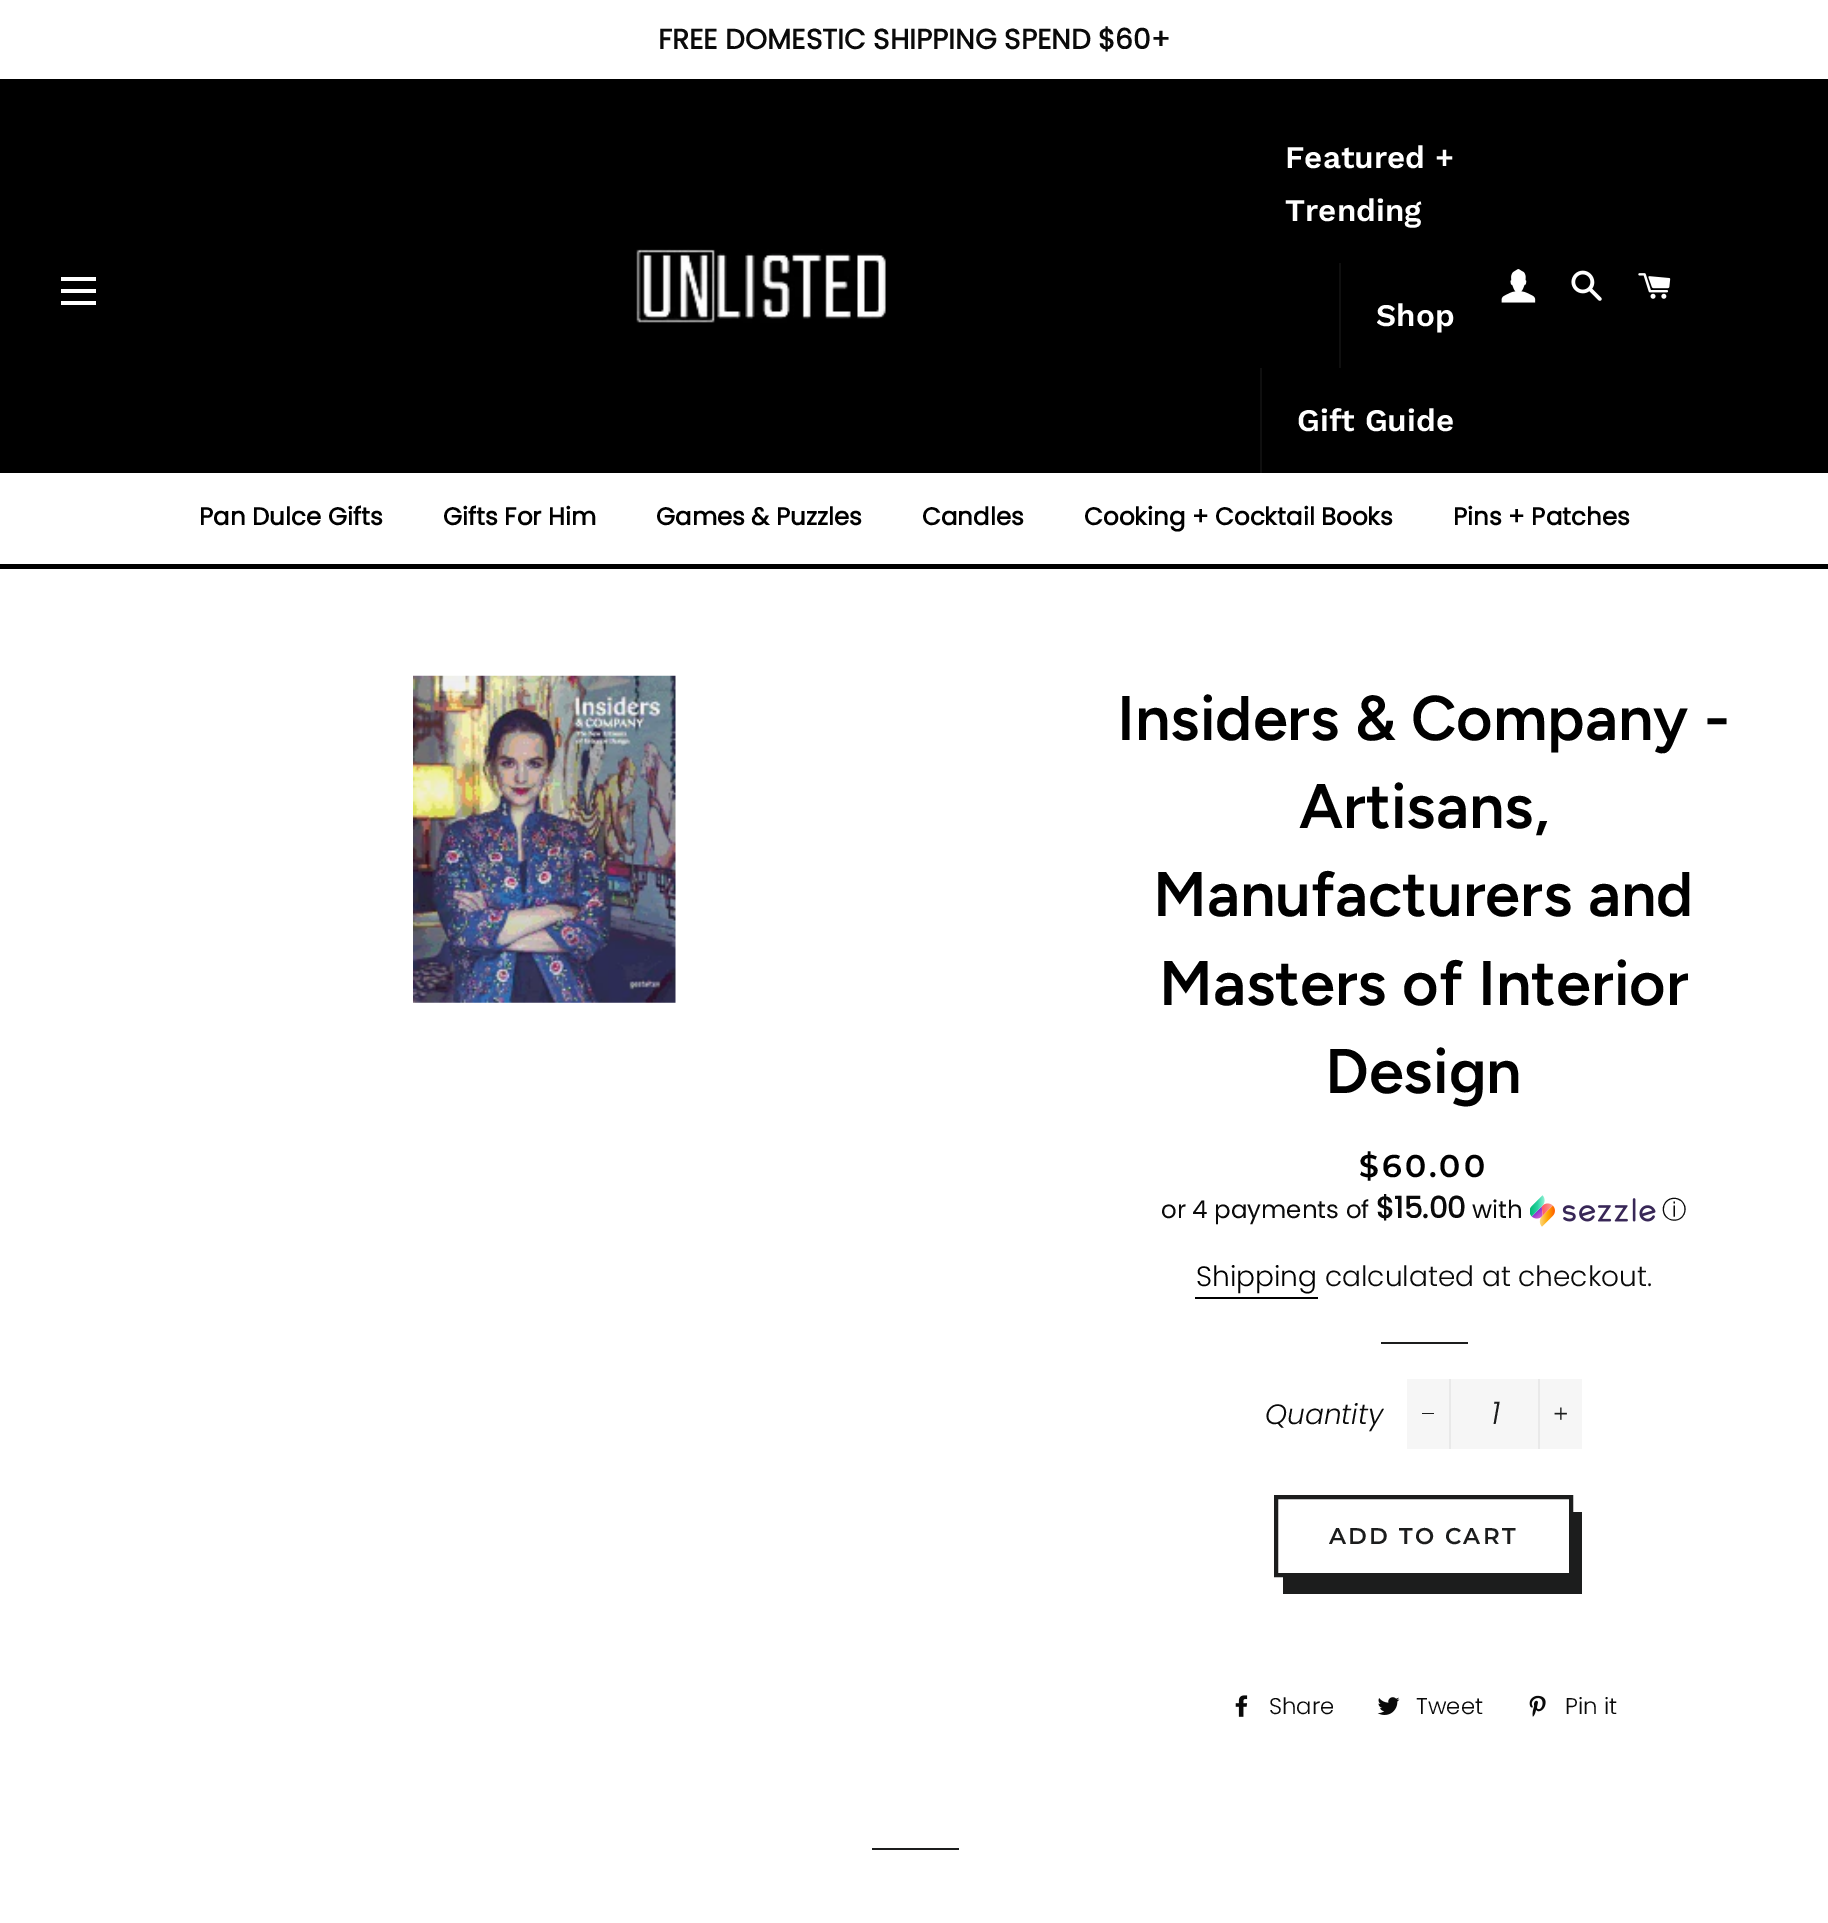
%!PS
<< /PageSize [1828 1923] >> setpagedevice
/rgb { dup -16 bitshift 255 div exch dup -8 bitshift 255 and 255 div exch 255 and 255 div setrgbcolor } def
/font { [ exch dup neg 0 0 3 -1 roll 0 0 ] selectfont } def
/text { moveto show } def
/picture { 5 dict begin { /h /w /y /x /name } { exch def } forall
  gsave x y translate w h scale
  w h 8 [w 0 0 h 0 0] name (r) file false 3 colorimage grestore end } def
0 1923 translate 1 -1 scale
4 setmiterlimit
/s1 { /Poppins-Bold 28 font 16#0A0A0A rgb } def
/s2 { /WorkSans-SemiBold 31.5 font 16#FFFFFF rgb } def
/s3 { /Poppins-Bold 24.5 font 16#000000 rgb } def
/s4 { /Figtree-SemiBold 63 font 16#000000 rgb } def
/s5 { /Poppins-Regular 24.5 font 16#0A0A0A rgb } def
/s6 { /Poppins-Bold 29.5 font 16#0A0A0A rgb } def
/s7 { /WenQuanYiZenHei-Medium 24.5 font 16#0A0A0A rgb } def
/s8 { /Poppins-Light 28 font 16#000000 rgb } def
/s9 { /Poppins-Light 28 font 16#0A0A0A rgb } def
/s10 { /Poppins-LightItalic 28 font 16#0A0A0A rgb } def
/s11 { /Poppins-LightItalic 31.5 font 16#1C1D1D rgb } def
/s12 { /Poppins-Light 22.75 font 16#0A0A0A rgb } def
16#FFFFFF rgb
0 0 1828 1923 rectfill
s1
(FREE DOMESTIC SHIPPING SPEND $60+) 658 49 text
16#000000 rgb
0 79 1828 394 rectfill
16#FFFFFF rgb
61 277 35 4 rectfill
61 289 35 4 rectfill
61 301 35 4 rectfill
(pic1.raw) 636 249 250 74 picture
s2
(Featured +) 1285 168 text
(Trending) 1285 221 text
16#0F0F0F rgb
1339 263 2 105 rectfill
s2
(Shop) 1376 326 text
16#0F0F0F rgb
1260 368 2 105 rectfill
s2
(Gift Guide) 1297 431 text
(pic2.raw) 1501 269 35 34 picture
(pic3.raw) 1571 270 31 31 picture
(pic4.raw) 1638 273 33 26 picture
16#000000 rgb
0 564 1828 5 rectfill
s3
(Pan Dulce Gifts) 199 525 text
(Gifts For Him) 443 525 text
(Games & Puzzles) 656 525 text
(Candles) 922 525 text
(Cooking + Cocktail Books) 1084 525 text
(Pins + Patches) 1453 525 text
(pic5.raw) 413 675 263 328 picture
s4
(Insiders & Company -) 1117 740 text
(Artisans,) 1299 828 text
(Manufacturers and) 1153 916 text
(Masters of Interior) 1159 1005 text
(Design) 1325 1093 text
/Montserrat-SemiBold 31.5 font
1359 1177 moveto 3 0 ($60.00) ashow
s5
(or 4 payments of) 1161 1218 text
s6
($15.00) 1376 1218 text
s5
(with) 1472 1218 text
(pic6.raw) 1530 1195 126 32 picture
s7
(ⓘ) 1662 1218 text
s8
(Shipping) 1196 1286 text
1195 1297 123 2 rectfill
s9
(calculated at checkout.) 1325 1286 text
16#1C1D1D rgb
1381 1342 87 2 rectfill
s10
(Quantity) 1265 1424 text
16#F6F6F6 rgb
1407 1379 175 70 rectfill
16#E9E9E9 rgb
1449 1379 2 70 rectfill
16#1C1D1D rgb
1422 1413 12 1 rectfill
s11
(1) 1491 1424 text
16#E9E9E9 rgb
1538 1379 2 70 rectfill
(pic7.raw) 1554 1407 13 13 picture
16#1C1D1D rgb
1283 1577 moveto 1283 1594 lineto 1582 1594 lineto 1582 1512 lineto 1573 1512 lineto 1573 1577 lineto closepath fill
4 setlinewidth
1276 1497 295 78 rectstroke
/Montserrat-SemiBold 22.75 font
1329 1544 moveto 2.25 0 (ADD TO CART) ashow
(pic8.raw) 1235 1695 13 22 picture
s12
(Share) 1269 1714 text
(pic9.raw) 1377 1697 23 18 picture
(Tweet) 1416 1714 text
(pic10.raw) 1529 1695 17 22 picture
(Pin it) 1565 1714 text
16#1C1D1D rgb
872 1848 87 2 rectfill
showpage
